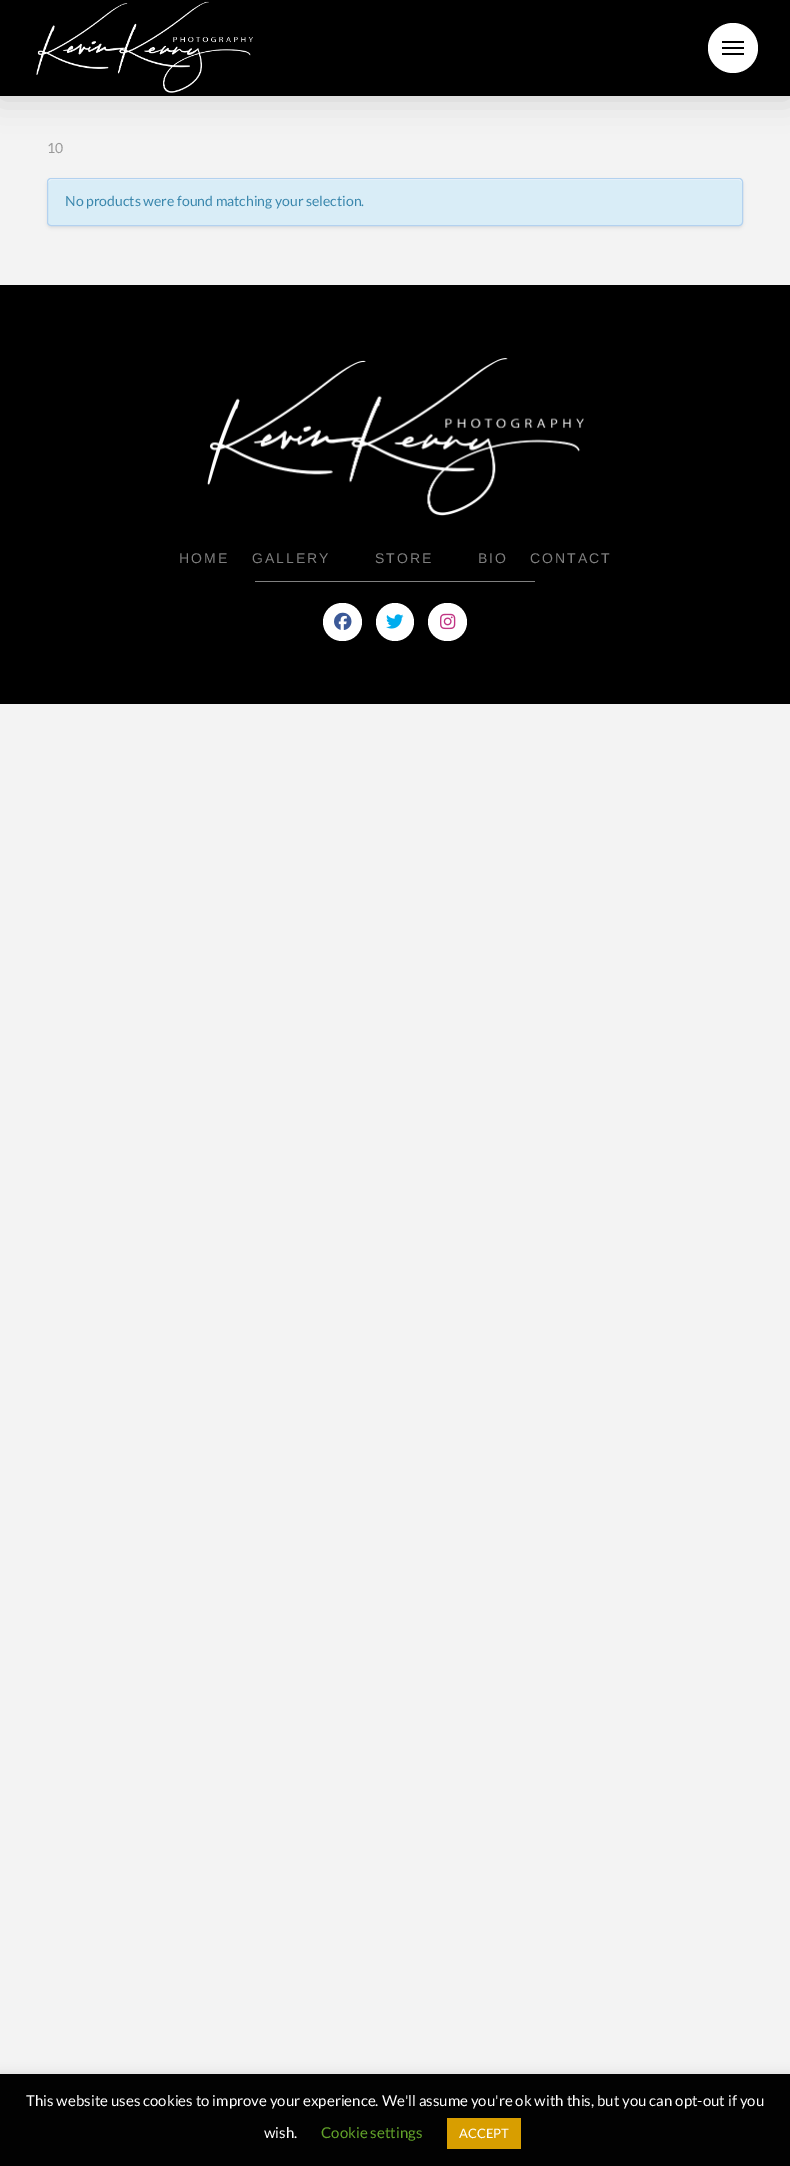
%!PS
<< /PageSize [790 2166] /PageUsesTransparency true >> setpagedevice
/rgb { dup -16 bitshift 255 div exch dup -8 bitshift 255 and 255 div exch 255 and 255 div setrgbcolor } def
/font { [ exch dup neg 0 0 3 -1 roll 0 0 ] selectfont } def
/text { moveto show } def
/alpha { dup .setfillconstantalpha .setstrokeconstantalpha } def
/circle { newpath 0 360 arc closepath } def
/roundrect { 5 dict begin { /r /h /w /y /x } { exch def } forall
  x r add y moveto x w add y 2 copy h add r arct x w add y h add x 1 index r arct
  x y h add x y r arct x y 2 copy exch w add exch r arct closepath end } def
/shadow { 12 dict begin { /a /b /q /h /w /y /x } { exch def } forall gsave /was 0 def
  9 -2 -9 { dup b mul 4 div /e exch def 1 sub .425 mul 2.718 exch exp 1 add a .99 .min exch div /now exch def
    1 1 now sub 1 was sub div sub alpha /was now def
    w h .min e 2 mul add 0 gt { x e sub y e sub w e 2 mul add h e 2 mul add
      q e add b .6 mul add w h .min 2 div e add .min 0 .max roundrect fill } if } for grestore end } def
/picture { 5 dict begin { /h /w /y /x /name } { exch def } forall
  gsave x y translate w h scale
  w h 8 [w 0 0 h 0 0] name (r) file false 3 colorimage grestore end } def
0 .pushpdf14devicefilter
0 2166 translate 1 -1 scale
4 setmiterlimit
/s1 { /Lato-Regular 14 font 16#999999 rgb } def
/s2 { /Lato-Regular 14 font 16#3A87AD rgb } def
/s3 { /Lato-Regular 15 font 16#FFFFFF rgb } def
/s4 { /Lato-Regular 15 font 16#62A329 rgb } def
/s5 { /Lato-Regular 13 font 16#FFFFFF rgb } def
16#F3F3F3 rgb
0 0 790 2166 rectfill
16#000000 rgb
0 2 790 96 0 16 0.15 shadow
0 0 790 96 rectfill
(pic1.raw) 36 1 217 92 picture
16#FFFFFF rgb
733 48 25 circle fill
16#000000 rgb
722 41 22 2 rectfill
722 47 22 2 rectfill
722 53 22 2 rectfill
s1
(10) 47 153 text
16#000000 rgb
47 180 696 48 4 1.5 0.07 shadow
16#D9EDF7 rgb
47 178 696 48 4 roundrect fill
16#F7FBFD rgb
51 180 moveto 739 180 lineto 741 180 742 181 742 183 curveto 742 181 741 179 739 179 curveto 51 179 lineto 49 179 48 181 48 183 curveto 48 181 49 180 51 180 curveto closepath fill
16#B3D1EF rgb
47.5 178.5 695 47 3.5 roundrect stroke
s2
(No products were found matching your selection.) 65 206 text
16#000000 rgb
0 285 790 419 rectfill
(pic2.raw) 207 358 377 158 picture
/LiberationSans-Regular 14 font
16#7F7F7F rgb
179 563 moveto 2 0 (HOME) ashow
252 563 moveto 2 0 (GALLERY) ashow
375 563 moveto 2 0 (STORE) ashow
478 563 moveto 2 0 (BIO) ashow
530 563 moveto 2 0 (CONTACT) ashow
16#808080 rgb
255 581 280 1 rectfill
16#FFFFFF rgb
323 603 39 38 19 roundrect fill
(pic3.raw) 334 612 18 18 picture
395 622 19 circle fill
(pic4.raw) 386 614 18 15 picture
428 603 39 38 19 roundrect fill
(pic5.raw) 440 613 16 17 picture
16#ACABAB rgb
0 2073 790 92 0 5 0.3 shadow
16#020202 rgb
0 2074 790 92 rectfill
s3
(This website uses cookies to improve your experience. We'll assume you're ok with this, but you can opt-out if you) 26 2106 text
(wish.) 264 2138 text
s4
(Cookie settings) 321 2138 text
16#D89E00 rgb
447 2118 74 31 rectfill
s5
(ACCEPT) 459 2138 text
.poppdf14devicefilter showpage
